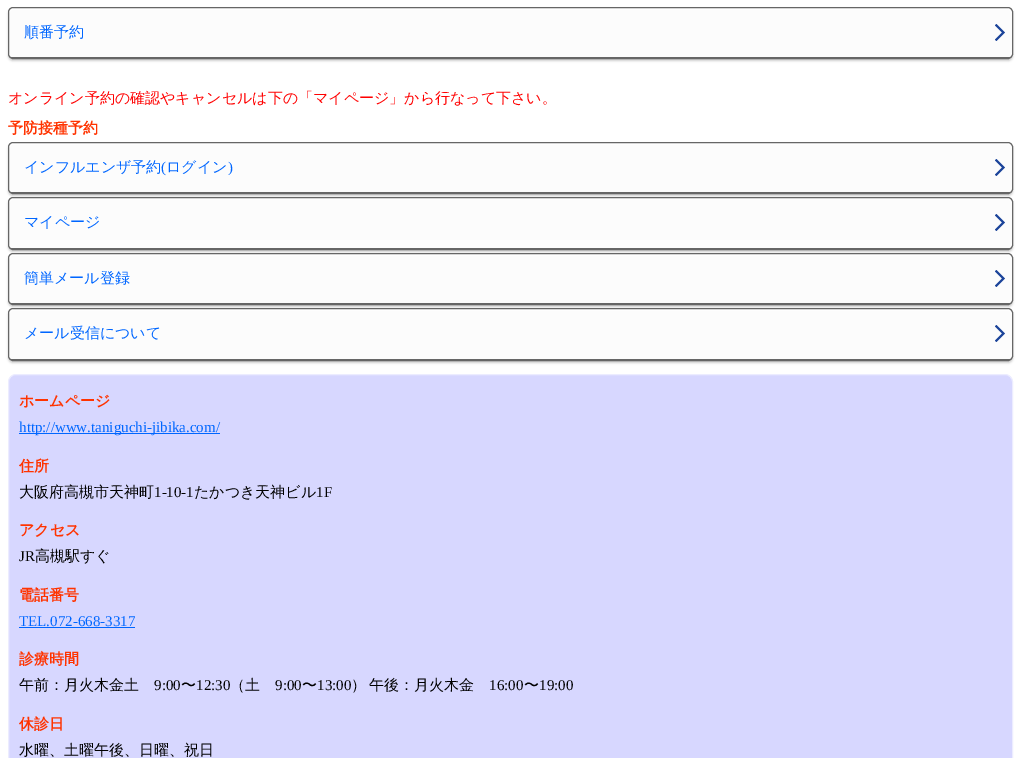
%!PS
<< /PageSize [1021 758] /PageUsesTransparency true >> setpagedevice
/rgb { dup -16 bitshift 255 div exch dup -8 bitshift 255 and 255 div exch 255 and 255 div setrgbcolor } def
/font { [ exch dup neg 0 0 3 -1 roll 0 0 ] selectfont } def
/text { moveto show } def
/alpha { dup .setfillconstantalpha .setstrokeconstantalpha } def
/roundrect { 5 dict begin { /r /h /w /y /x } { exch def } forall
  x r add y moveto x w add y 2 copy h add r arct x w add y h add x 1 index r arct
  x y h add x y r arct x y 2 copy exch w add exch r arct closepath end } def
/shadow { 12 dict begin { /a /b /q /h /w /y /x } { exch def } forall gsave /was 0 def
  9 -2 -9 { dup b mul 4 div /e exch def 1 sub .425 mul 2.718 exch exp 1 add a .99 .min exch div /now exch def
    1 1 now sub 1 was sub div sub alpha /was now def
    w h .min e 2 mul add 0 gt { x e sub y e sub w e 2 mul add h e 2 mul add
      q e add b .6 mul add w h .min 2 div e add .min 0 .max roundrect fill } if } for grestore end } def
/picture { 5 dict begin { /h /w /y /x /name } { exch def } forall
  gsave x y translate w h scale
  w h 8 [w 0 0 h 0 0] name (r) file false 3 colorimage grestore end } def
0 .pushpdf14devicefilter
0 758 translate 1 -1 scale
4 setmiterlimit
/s1 { /WenQuanYiZenHei-Medium 15 font 16#0066FF rgb } def
/s2 { /WenQuanYiZenHei-Medium 15 font 16#FF0000 rgb } def
/s3 { /WenQuanYiZenHei-Bold 15 font 16#FF3300 rgb } def
/s4 { /LiberationSerif-Regular 15 font 16#0066FF rgb } def
/s5 { /WenQuanYiZenHei-Medium 15 font 16#000000 rgb } def
/s6 { /LiberationSerif-Regular 15 font 16#000000 rgb } def
16#FFFFFF rgb
0 0 1021 758 rectfill
16#000000 rgb
8 9 1005 52 5 1 0.19 shadow
16#FCFCFC rgb
13 8 moveto 1008 8 lineto 1010 8 1012 10 1012 12 curveto 1012 54 lineto 1012 56 1010 57 1008 57 curveto 13 57 lineto 11 57 9 56 9 54 curveto 9 12 lineto 9 10 11 8 13 8 curveto closepath fill
16#FEFEFE rgb
13 10 moveto 1008 10 lineto 1010 10 1012 12 1012 14 curveto 1012 12 lineto 1012 10 1010 8 1008 8 curveto 13 8 lineto 11 8 9 10 9 12 curveto 9 14 lineto 9 12 11 10 13 10 curveto closepath fill
16#666666 rgb
8.5 7.5 1004 51 4.5 roundrect stroke
11 57 1000 1 rectfill
(pic1.raw) 995 24 10 17 picture
s1
(順番予約) 24 37 text
s2
(オンライン予約の確認やキャンセルは下の「マイページ」から行なって下さい。) 8 103 text
s3
(予防接種予約) 8 133 text
16#000000 rgb
8 144 1005 52 5 1 0.19 shadow
16#FCFCFC rgb
13 143 moveto 1008 143 lineto 1010 143 1012 145 1012 147 curveto 1012 189 lineto 1012 191 1010 192 1008 192 curveto 13 192 lineto 11 192 9 191 9 189 curveto 9 147 lineto 9 145 11 143 13 143 curveto closepath fill
16#FEFEFE rgb
13 145 moveto 1008 145 lineto 1010 145 1012 147 1012 149 curveto 1012 147 lineto 1012 145 1010 143 1008 143 curveto 13 143 lineto 11 143 9 145 9 147 curveto 9 149 lineto 9 147 11 145 13 145 curveto closepath fill
16#666666 rgb
8.5 142.5 1004 51 4.5 roundrect stroke
11 192 1000 1 rectfill
(pic1.raw) 995 159 10 17 picture
s1
(インフルエンザ予約) 24 172 text
s4
(\() 161 172 text
s1
(ログイン) 166 172 text
s4
(\)) 228 172 text
16#000000 rgb
8 199 1005 53 5 1 0.19 shadow
16#FCFCFC rgb
13 198 moveto 1008 198 lineto 1010 198 1012 200 1012 202 curveto 1012 245 lineto 1012 247 1010 248 1008 248 curveto 13 248 lineto 11 248 9 247 9 245 curveto 9 202 lineto 9 200 11 198 13 198 curveto closepath fill
16#FEFEFE rgb
13 200 moveto 1008 200 lineto 1010 200 1012 202 1012 204 curveto 1012 202 lineto 1012 200 1010 198 1008 198 curveto 13 198 lineto 11 198 9 200 9 202 curveto 9 204 lineto 9 202 11 200 13 200 curveto closepath fill
16#666666 rgb
8.5 197.5 1004 52 4.5 roundrect stroke
11 248 1000 1 rectfill
(pic1.raw) 995 214 10 17 picture
s1
(マイページ) 24 227 text
16#000000 rgb
8 255 1005 52 5 1 0.19 shadow
16#FCFCFC rgb
13 254 moveto 1008 254 lineto 1010 254 1012 256 1012 258 curveto 1012 300 lineto 1012 302 1010 303 1008 303 curveto 13 303 lineto 11 303 9 302 9 300 curveto 9 258 lineto 9 256 11 254 13 254 curveto closepath fill
16#FEFEFE rgb
13 256 moveto 1008 256 lineto 1010 256 1012 258 1012 260 curveto 1012 258 lineto 1012 256 1010 254 1008 254 curveto 13 254 lineto 11 254 9 256 9 258 curveto 9 260 lineto 9 258 11 256 13 256 curveto closepath fill
16#666666 rgb
8.5 253.5 1004 51 4.5 roundrect stroke
11 303 1000 1 rectfill
(pic1.raw) 995 270 10 17 picture
s1
(簡単メール登録) 24 283 text
16#000000 rgb
8 310 1005 53 5 1 0.19 shadow
16#FCFCFC rgb
13 309 moveto 1008 309 lineto 1010 309 1012 311 1012 313 curveto 1012 356 lineto 1012 358 1010 359 1008 359 curveto 13 359 lineto 11 359 9 358 9 356 curveto 9 313 lineto 9 311 11 309 13 309 curveto closepath fill
16#FEFEFE rgb
13 311 moveto 1008 311 lineto 1010 311 1012 313 1012 315 curveto 1012 313 lineto 1012 311 1010 309 1008 309 curveto 13 309 lineto 11 309 9 311 9 313 curveto 9 315 lineto 9 313 11 311 13 311 curveto closepath fill
16#666666 rgb
8.5 308.5 1004 52 4.5 roundrect stroke
11 359 1000 1 rectfill
(pic1.raw) 995 325 10 17 picture
s1
(メール受信について) 24 338 text
16#D7D7FF rgb
8.5 374.5 1004 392 7.5 roundrect gsave fill grestore
16#ECECFF rgb
stroke
s3
(ホームページ) 19 406 text
16#0066FF rgb
19 433 201 1 rectfill
s4
(http://www.taniguchi-jibika.com/) 19 432 text
s3
(住所) 19 471 text
s5
(大阪府高槻市天神町) 19 497 text
s6
(1-10-1) 154 497 text
s5
(たかつき天神ビル) 194 497 text
s6
(1F) 316 497 text
s3
(アクセス) 19 535 text
s6
(JR) 19 561 text
s5
(高槻駅すぐ) 35 561 text
s3
(電話番号) 19 600 text
s4
(TEL.072-668-3317) 19 626 text
19 627 116 1 rectfill
s3
(診療時間) 19 664 text
s5
(午前：月火木金土) 19 690 text
s6
(9:00) 154 690 text
s5
(〜) 181 690 text
s6
(12:30) 196 690 text
s5
(（土) 230 690 text
s6
(9:00) 275 690 text
s5
(〜) 302 690 text
s6
(13:00) 317 690 text
s5
(）) 351 690 text
(午後：月火木金) 369 690 text
s6
(16:00) 489 690 text
s5
(〜) 524 690 text
s6
(19:00) 539 690 text
s3
(休診日) 19 729 text
s5
(水曜、土曜午後、日曜、祝日) 19 755 text
.poppdf14devicefilter showpage
